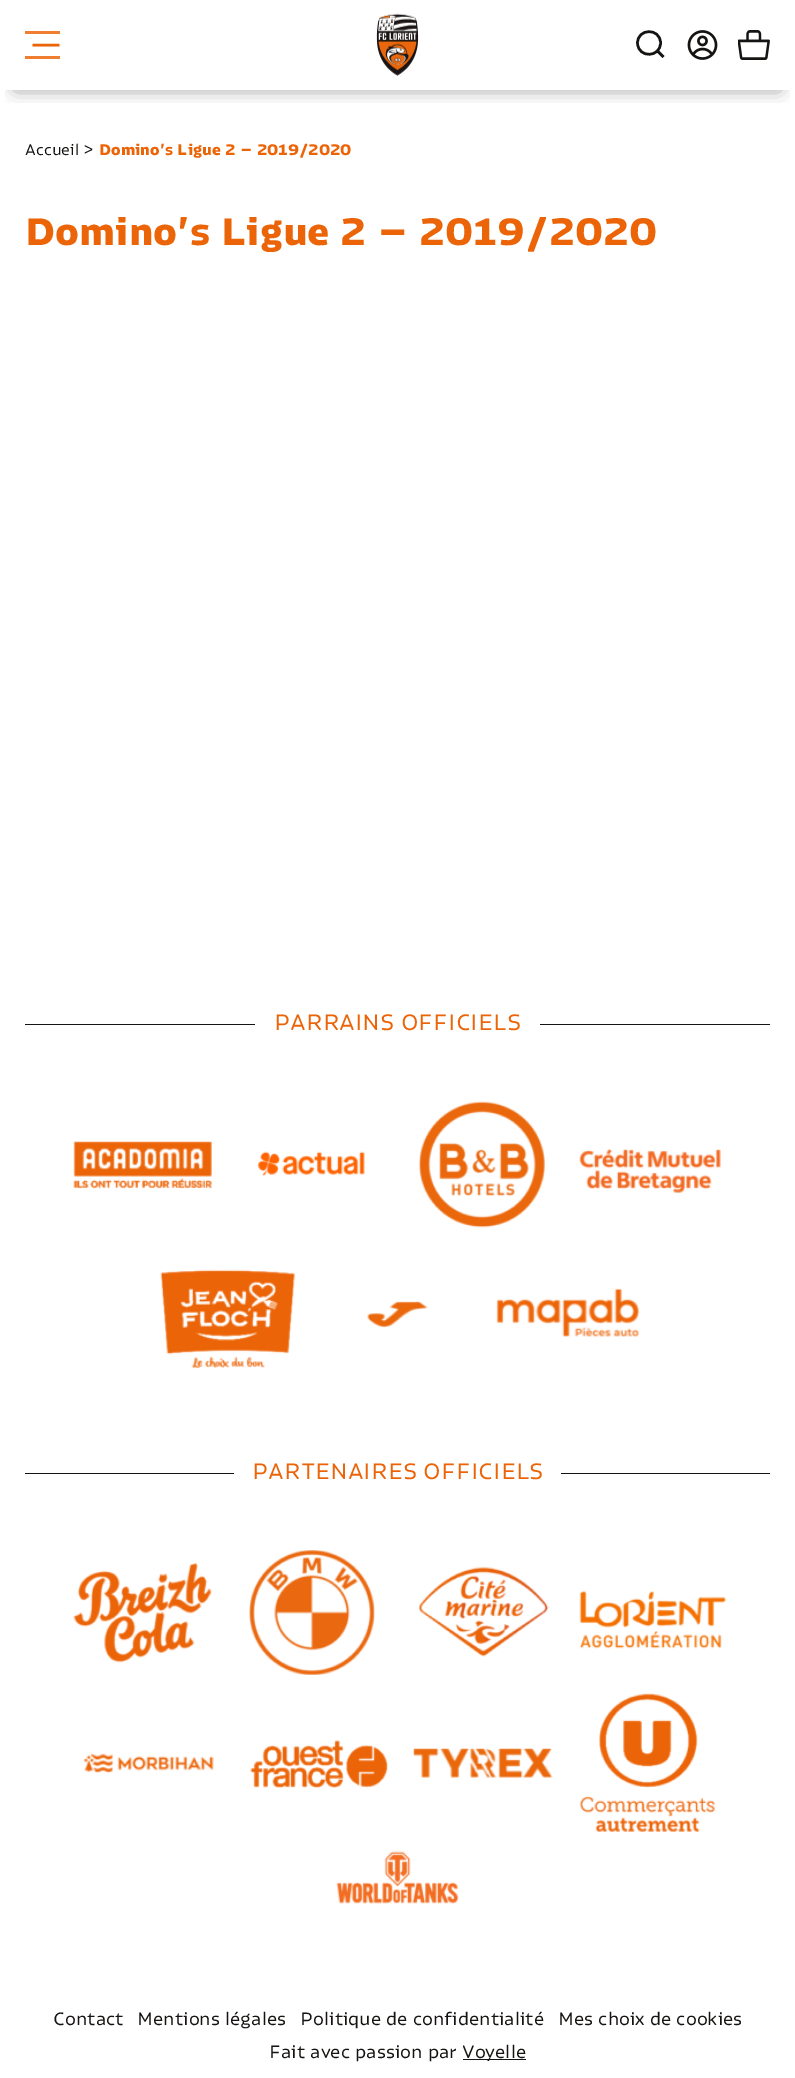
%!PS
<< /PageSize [795 2078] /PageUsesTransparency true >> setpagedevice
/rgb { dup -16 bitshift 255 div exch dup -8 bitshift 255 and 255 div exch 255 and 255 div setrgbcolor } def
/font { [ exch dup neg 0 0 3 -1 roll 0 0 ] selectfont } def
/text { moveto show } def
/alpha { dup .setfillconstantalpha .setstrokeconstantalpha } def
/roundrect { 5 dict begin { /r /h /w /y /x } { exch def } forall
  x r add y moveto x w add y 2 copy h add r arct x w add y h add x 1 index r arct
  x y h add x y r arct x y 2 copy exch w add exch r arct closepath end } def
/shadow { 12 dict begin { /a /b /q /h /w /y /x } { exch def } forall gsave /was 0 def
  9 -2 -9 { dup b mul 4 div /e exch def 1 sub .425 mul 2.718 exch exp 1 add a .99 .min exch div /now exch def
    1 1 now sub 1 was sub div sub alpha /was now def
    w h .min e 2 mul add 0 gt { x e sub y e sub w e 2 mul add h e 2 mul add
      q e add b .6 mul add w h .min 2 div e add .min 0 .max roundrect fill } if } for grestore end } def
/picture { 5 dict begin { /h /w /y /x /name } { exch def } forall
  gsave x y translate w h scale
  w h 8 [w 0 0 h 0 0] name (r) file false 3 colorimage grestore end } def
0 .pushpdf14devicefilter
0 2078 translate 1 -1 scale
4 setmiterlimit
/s1 { /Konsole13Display-Regular 15 font 16#161412 rgb } def
/s2 { /Konsole13Display-Bold 15 font 16#EC6408 rgb } def
/s3 { /Konsole13Display-Bold 37.5 font 16#EC6408 rgb } def
/s4 { /Konsole13Display-Regular 21.9 font 16#EC6408 rgb } def
/s5 { /Konsole13Display-Regular 17.5 font 16#161412 rgb } def
16#FFFFFF rgb
0 0 795 2078 rectfill
gsave
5 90 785 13 rectclip
16#000000 rgb
16 30 763 58 0 9 0.47 shadow
grestore
16#EF7E31 rgb
25 31 35 3 rectfill
25 56 35 3 rectfill
16#EC6408 rgb
2.5 setlinewidth
59.5 45 moveto 32.5 45 lineto stroke
(pic1.raw) 376 13 43 63 picture
16#161412 rgb
1 setlinecap
657.5 51 moveto 663.5 57 lineto closepath 660.5 43 moveto 660.5 57.5 638.5 58.5 637.5 43.5 curveto 637 28 660.5 27.5 660.5 43 curveto closepath stroke
(pic2.raw) 687 30 31 30 picture
(pic3.raw) 738 30 32 30 picture
s1
(Accueil >) 25 155 text
s2
(Domino’s Ligue 2 – 2019/2020) 99 155 text
s3
(Domino’s Ligue 2 – 2019/2020) 25 245 text
16#161412 rgb
25 1024 230 1 rectfill
s4
(PARRAINS OFFICIELS) 274 1030 text
16#161412 rgb
540 1024 230 1 rectfill
(pic4.raw) 73 1141 139 48 picture
(pic5.raw) 257 1151 108 25 picture
(pic6.raw) 419 1101 126 127 picture
(pic7.raw) 579 1148 142 45 picture
(pic8.raw) 160 1269 136 100 picture
(pic9.raw) 367 1301 61 26 picture
(pic10.raw) 496 1288 144 49 picture
25 1473 209 1 rectfill
s4
(PARTENAIRES OFFICIELS) 252 1479 text
16#161412 rgb
561 1473 209 1 rectfill
(pic11.raw) 73 1562 139 101 picture
(pic12.raw) 249 1550 126 125 picture
(pic13.raw) 419 1567 130 90 picture
(pic14.raw) 579 1590 148 59 picture
(pic15.raw) 83 1753 131 20 picture
(pic16.raw) 250 1740 138 48 picture
(pic17.raw) 413 1748 140 30 picture
(pic18.raw) 579 1693 137 139 picture
(pic19.raw) 336 1851 123 53 picture
s5
(Contact) 53 2025 text
(Mentions légales) 137 2025 text
(Politique de confidentialité) 300 2025 text
(Mes choix de cookies) 558 2025 text
(Fait avec passion par) 269 2058 text
463 2059 63 1 rectfill
(Voyelle) 462 2058 text
.poppdf14devicefilter showpage
